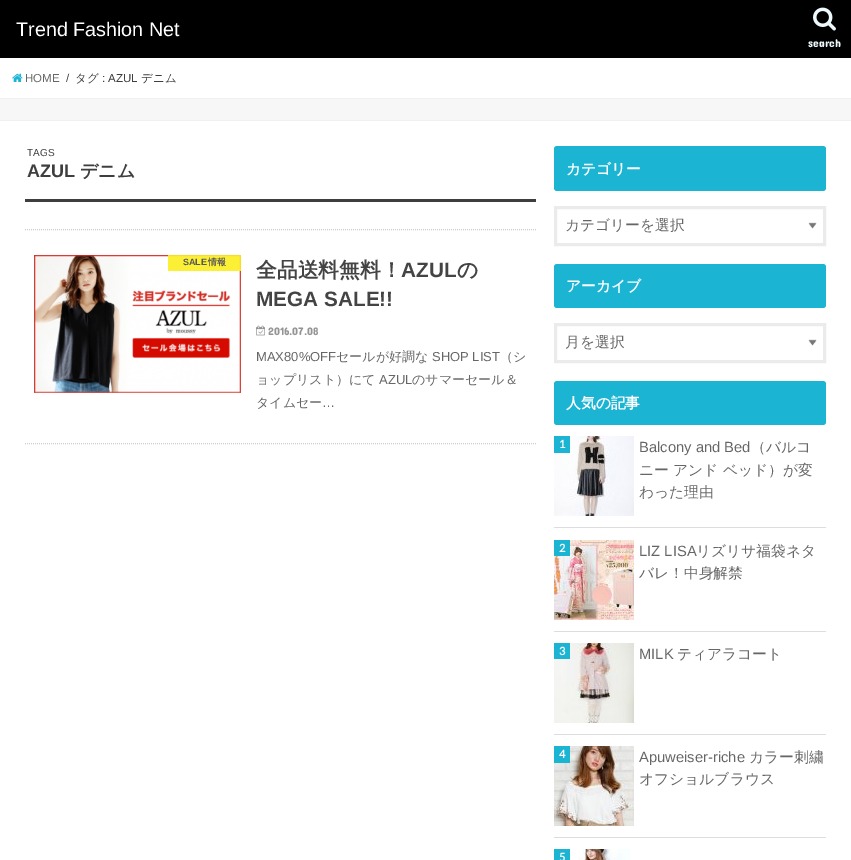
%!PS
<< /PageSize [851 860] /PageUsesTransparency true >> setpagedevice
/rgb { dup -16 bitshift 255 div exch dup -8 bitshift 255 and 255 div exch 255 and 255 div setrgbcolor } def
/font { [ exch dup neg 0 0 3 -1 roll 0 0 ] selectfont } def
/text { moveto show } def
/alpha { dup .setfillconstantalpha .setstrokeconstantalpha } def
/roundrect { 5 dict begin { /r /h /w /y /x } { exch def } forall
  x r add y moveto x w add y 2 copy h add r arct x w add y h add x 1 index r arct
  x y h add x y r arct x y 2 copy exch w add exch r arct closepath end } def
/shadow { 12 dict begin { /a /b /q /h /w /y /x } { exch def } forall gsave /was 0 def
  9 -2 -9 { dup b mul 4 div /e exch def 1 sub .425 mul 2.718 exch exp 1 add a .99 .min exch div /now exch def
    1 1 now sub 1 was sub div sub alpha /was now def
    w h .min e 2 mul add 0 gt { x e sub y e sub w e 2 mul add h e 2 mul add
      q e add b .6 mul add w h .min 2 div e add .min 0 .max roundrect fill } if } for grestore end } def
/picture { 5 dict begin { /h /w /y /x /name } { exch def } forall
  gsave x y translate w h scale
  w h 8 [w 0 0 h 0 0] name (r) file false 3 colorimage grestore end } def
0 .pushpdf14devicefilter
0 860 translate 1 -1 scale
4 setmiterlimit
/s1 { /LiberationSans-Regular 19.75 font 16#FFFFFF rgb } def
/s2 { /ConcertOne-Regular 11.5 font 16#EDF9FC rgb } def
/s3 { /LiberationSans-Regular 11.5 font 16#666666 rgb } def
/s4 { /LiberationSans-Regular 11.5 font 16#3E3E3E rgb } def
/s5 { /WenQuanYiZenHei-Medium 11.5 font 16#3E3E3E rgb } def
/s6 { /LiberationSans-Regular 10 font 16#3E3E3E rgb } def
/s7 { /LiberationSans-Bold 18 font 16#3E3E3E rgb } def
/s8 { /WenQuanYiZenHei-Bold 18 font 16#3E3E3E rgb } def
/s9 { /LiberationSans-Bold 9 font 16#575757 rgb } def
/s10 { /WenQuanYiZenHei-Bold 9 font 16#575757 rgb } def
/s11 { /WenQuanYiZenHei-Bold 20.75 font 16#444444 rgb } def
/s12 { /LiberationSans-Bold 20.75 font 16#444444 rgb } def
/s13 { /ConcertOne-Regular 11 font 16#949494 rgb } def
/s14 { /LiberationSans-Regular 13 font 16#666666 rgb } def
/s15 { /WenQuanYiZenHei-Medium 13 font 16#666666 rgb } def
/s16 { /WenQuanYiZenHei-Bold 14.75 font 16#FFFFFF rgb } def
/s17 { /WenQuanYiZenHei-Medium 14.75 font 16#666666 rgb } def
/s18 { /Lato-Bold 11 font 16#FFFFFF rgb } def
/s19 { /LiberationSans-Regular 14.75 font 16#666666 rgb } def
16#F7F7F7 rgb
0 0 851 860 rectfill
16#DDDDDD rgb
0 58 851 40 0 0.5 1 shadow
16#000000 rgb
0 0 851 58 rectfill
s1
(Trend Fashion Net) 16 36 text
(pic1.raw) 813 7 23 24 picture
s2
(search) 808 47 text
16#FFFFFF rgb
0 58 851 40 rectfill
(pic2.raw) 12 73 11 9 picture
s3
(HOME) 25 82 text
s4
(/) 66 82 text
s5
(タグ) 75 82 text
s4
(: AZUL) 102 82 text
s5
(デニム) 141 82 text
16#DDDDDD rgb
0 121 851 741 0 0.5 1 shadow
16#FFFFFF rgb
0 121 851 739 rectfill
16#3E3E3E rgb
25 199 511 3 rectfill
s6
(TAGS) 27 156 text
s7
(AZUL) 27 177 text
s8
(デニム) 80 177 text
16#CCCCCC rgb
[1 1] 0 setdash
25 229.5 moveto 536 229.5 lineto stroke
25 443.5 moveto 536 443.5 lineto stroke
(pic3.raw) 34 255 207 138 picture
0.9 alpha
16#FCEE21 rgb
168 255 73 16 rectfill
1 alpha
s9
(SALE) 183 265 text
s10
(情報) 208 265 text
s11
(全品送料無料！) 256 277 text
s12
(AZUL) 401 277 text
s11
(の) 457 277 text
s12
(MEGA SALE!!) 256 306 text
(pic4.raw) 256 325 9 11 picture
s13
(2016.07.08) 268 335 text
s14
(MAX80%OFF) 256 361 text
s15
(セールが好調な) 336 361 text
s14
(SHOP LIST) 432 361 text
s15
(（シ) 500 361 text
(ョップリスト）にて) 256 384 text
s14
(AZUL) 379 384 text
s15
(のサマーセール＆) 412 384 text
(タイムセー) 256 407 text
s14
(…) 322 407 text
16#1BB4D3 rgb
554 146 272 45 3 roundrect fill
s16
(カテゴリー) 566 174 text
(pic5.raw) 808 222 9 7 picture
16#EBEBEB rgb
3 setlinewidth
[] 0 setdash
555.5 207.5 moveto 824.5 207.5 lineto 824.5 244.5 lineto 555.5 244.5 lineto closepath stroke
s17
(カテゴリーを選択) 565 230 text
16#1BB4D3 rgb
554 264 272 44 3 roundrect fill
s16
(アーカイブ) 566 291 text
(pic5.raw) 808 339 9 7 picture
16#EBEBEB rgb
555.5 324.5 moveto 824.5 324.5 lineto 824.5 361.5 lineto 555.5 361.5 lineto closepath stroke
s17
(月を選択) 565 347 text
16#1BB4D3 rgb
554 381 272 44 3 roundrect fill
s16
(人気の記事) 566 408 text
16#DDDDDD rgb
554 527 272 1 rectfill
(pic6.raw) 554 436 80 80 picture
16#1BB4D3 rgb
554 436 16 17 rectfill
s18
(1) 559 448 text
s19
(Balcony and Bed) 639 452 text
s17
(（バルコ) 751 452 text
(ニー アンド ベッド）が変) 639 475 text
(わった理由) 639 497 text
16#DDDDDD rgb
554 631 272 1 rectfill
(pic7.raw) 554 540 80 80 picture
16#1BB4D3 rgb
554 540 16 16 rectfill
s18
(2) 559 552 text
s19
(LIZ LISA) 639 556 text
s17
(リズリサ福袋ネタ) 696 556 text
(バレ！中身解禁) 639 578 text
16#DDDDDD rgb
554 734 272 1 rectfill
(pic8.raw) 554 643 80 80 picture
16#1BB4D3 rgb
554 643 16 16 rectfill
s18
(3) 559 655 text
s19
(MILK) 639 659 text
s17
(ティアラコート) 677 659 text
16#DDDDDD rgb
554 837 272 1 rectfill
(pic9.raw) 554 746 80 80 picture
16#1BB4D3 rgb
554 746 16 17 rectfill
s18
(4) 559 758 text
s19
(Apuweiser-riche) 639 762 text
s17
(カラー刺繍) 749 762 text
(オフショルブラウス) 639 784 text
16#1BB4D3 rgb
554 849 16 11 rectfill
s18
(5) 559 861 text
(pic10.raw) 578 849 52 11 picture
.poppdf14devicefilter showpage
